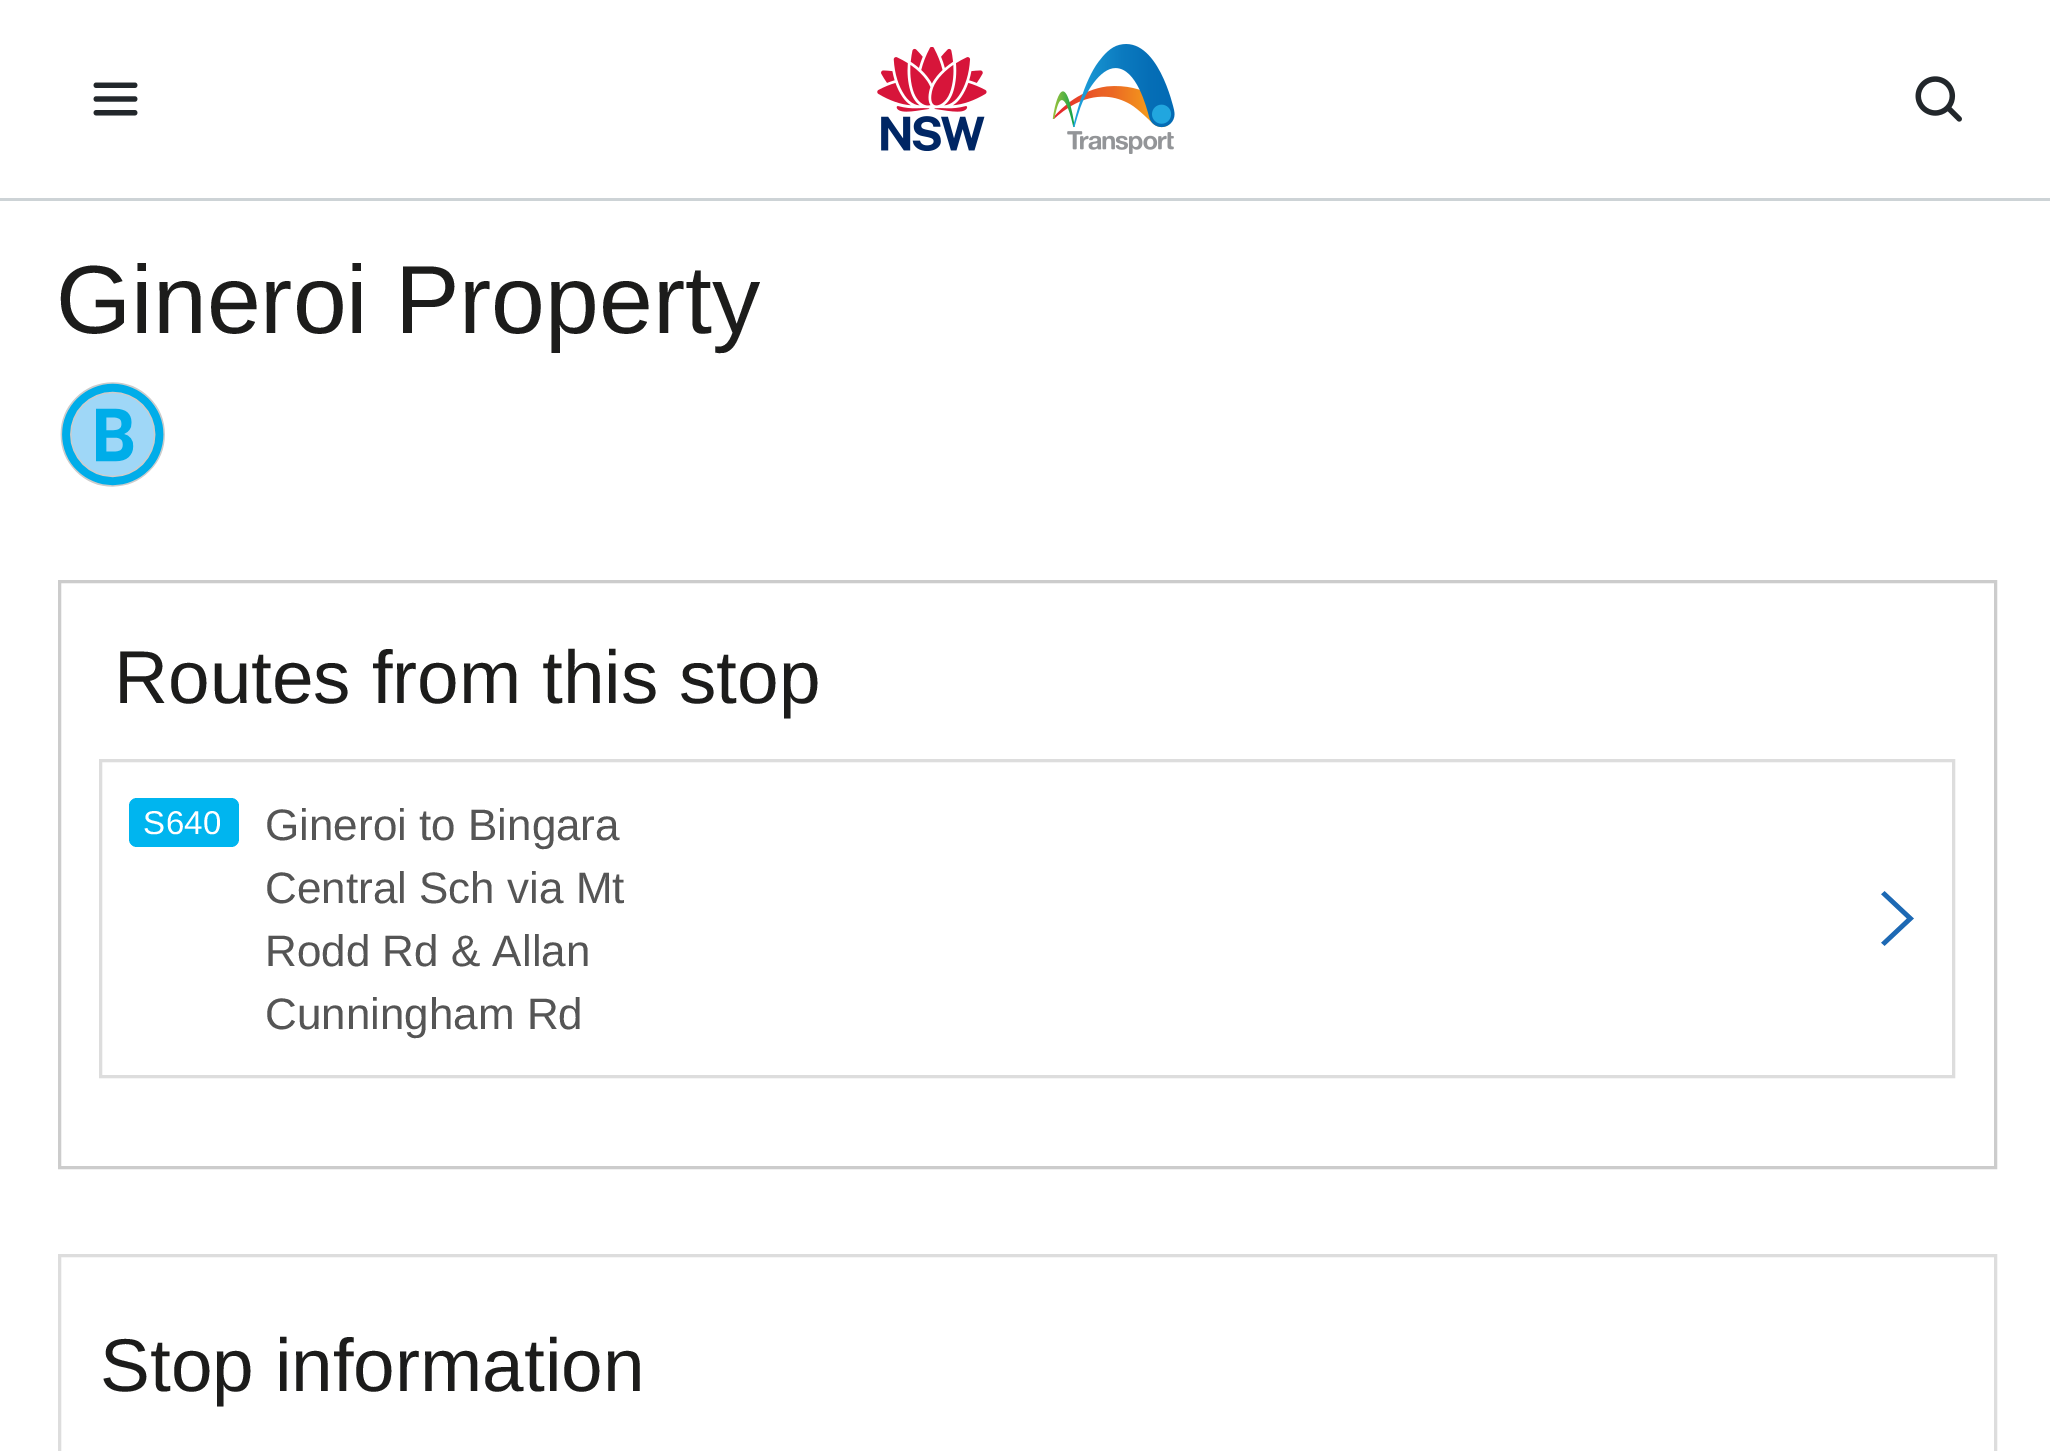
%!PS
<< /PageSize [2050 1451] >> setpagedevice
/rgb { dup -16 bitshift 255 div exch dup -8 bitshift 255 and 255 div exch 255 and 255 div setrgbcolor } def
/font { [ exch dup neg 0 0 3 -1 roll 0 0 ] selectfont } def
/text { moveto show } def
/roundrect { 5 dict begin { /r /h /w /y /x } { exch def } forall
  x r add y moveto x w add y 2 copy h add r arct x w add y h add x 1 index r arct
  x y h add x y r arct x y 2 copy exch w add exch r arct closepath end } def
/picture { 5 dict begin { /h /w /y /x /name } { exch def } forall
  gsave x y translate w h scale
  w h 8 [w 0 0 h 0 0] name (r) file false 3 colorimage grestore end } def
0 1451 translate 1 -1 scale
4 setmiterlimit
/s1 { /LiberationSans-Regular 96.75 font 16#1C1C1B rgb } def
/s2 { /LiberationSans-Regular 74.75 font 16#1C1C1B rgb } def
/s3 { /LiberationSans-Regular 44 font 16#555555 rgb } def
16#FFFFFF rgb
0 0 2050 1451 rectfill
16#CDD3D6 rgb
0 198 2050 3 rectfill
(pic1.raw) 93 82 45 34 picture
(pic2.raw) 877 44 298 110 picture
(pic3.raw) 1915 76 47 46 picture
s1
(Gineroi Property) 56 333 text
(pic4.raw) 60 382 105 105 picture
16#CCCCCC rgb
3 setlinewidth
59.5 581.5 1936 586 rectstroke
s2
(Routes from this stop) 114 703 text
16#DDDDDD rgb
100.5 760.5 1853 316 rectstroke
16#00B5EF rgb
129 798 110 49 8 roundrect fill
/LiberationSans-Regular 33 font
16#FFFFFF rgb
143 834 moveto 0.5 0 (S640) ashow
s3
(Gineroi to Bingara) 265 840 text
(Central Sch via Mt) 265 903 text
(Rodd Rd & Allan) 265 966 text
(Cunningham Rd) 265 1029 text
(pic5.raw) 1881 891 33 55 picture
16#DDDDDD rgb
59.5 1255.5 1936 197 rectstroke
s2
(Stop information) 100 1391 text
showpage
